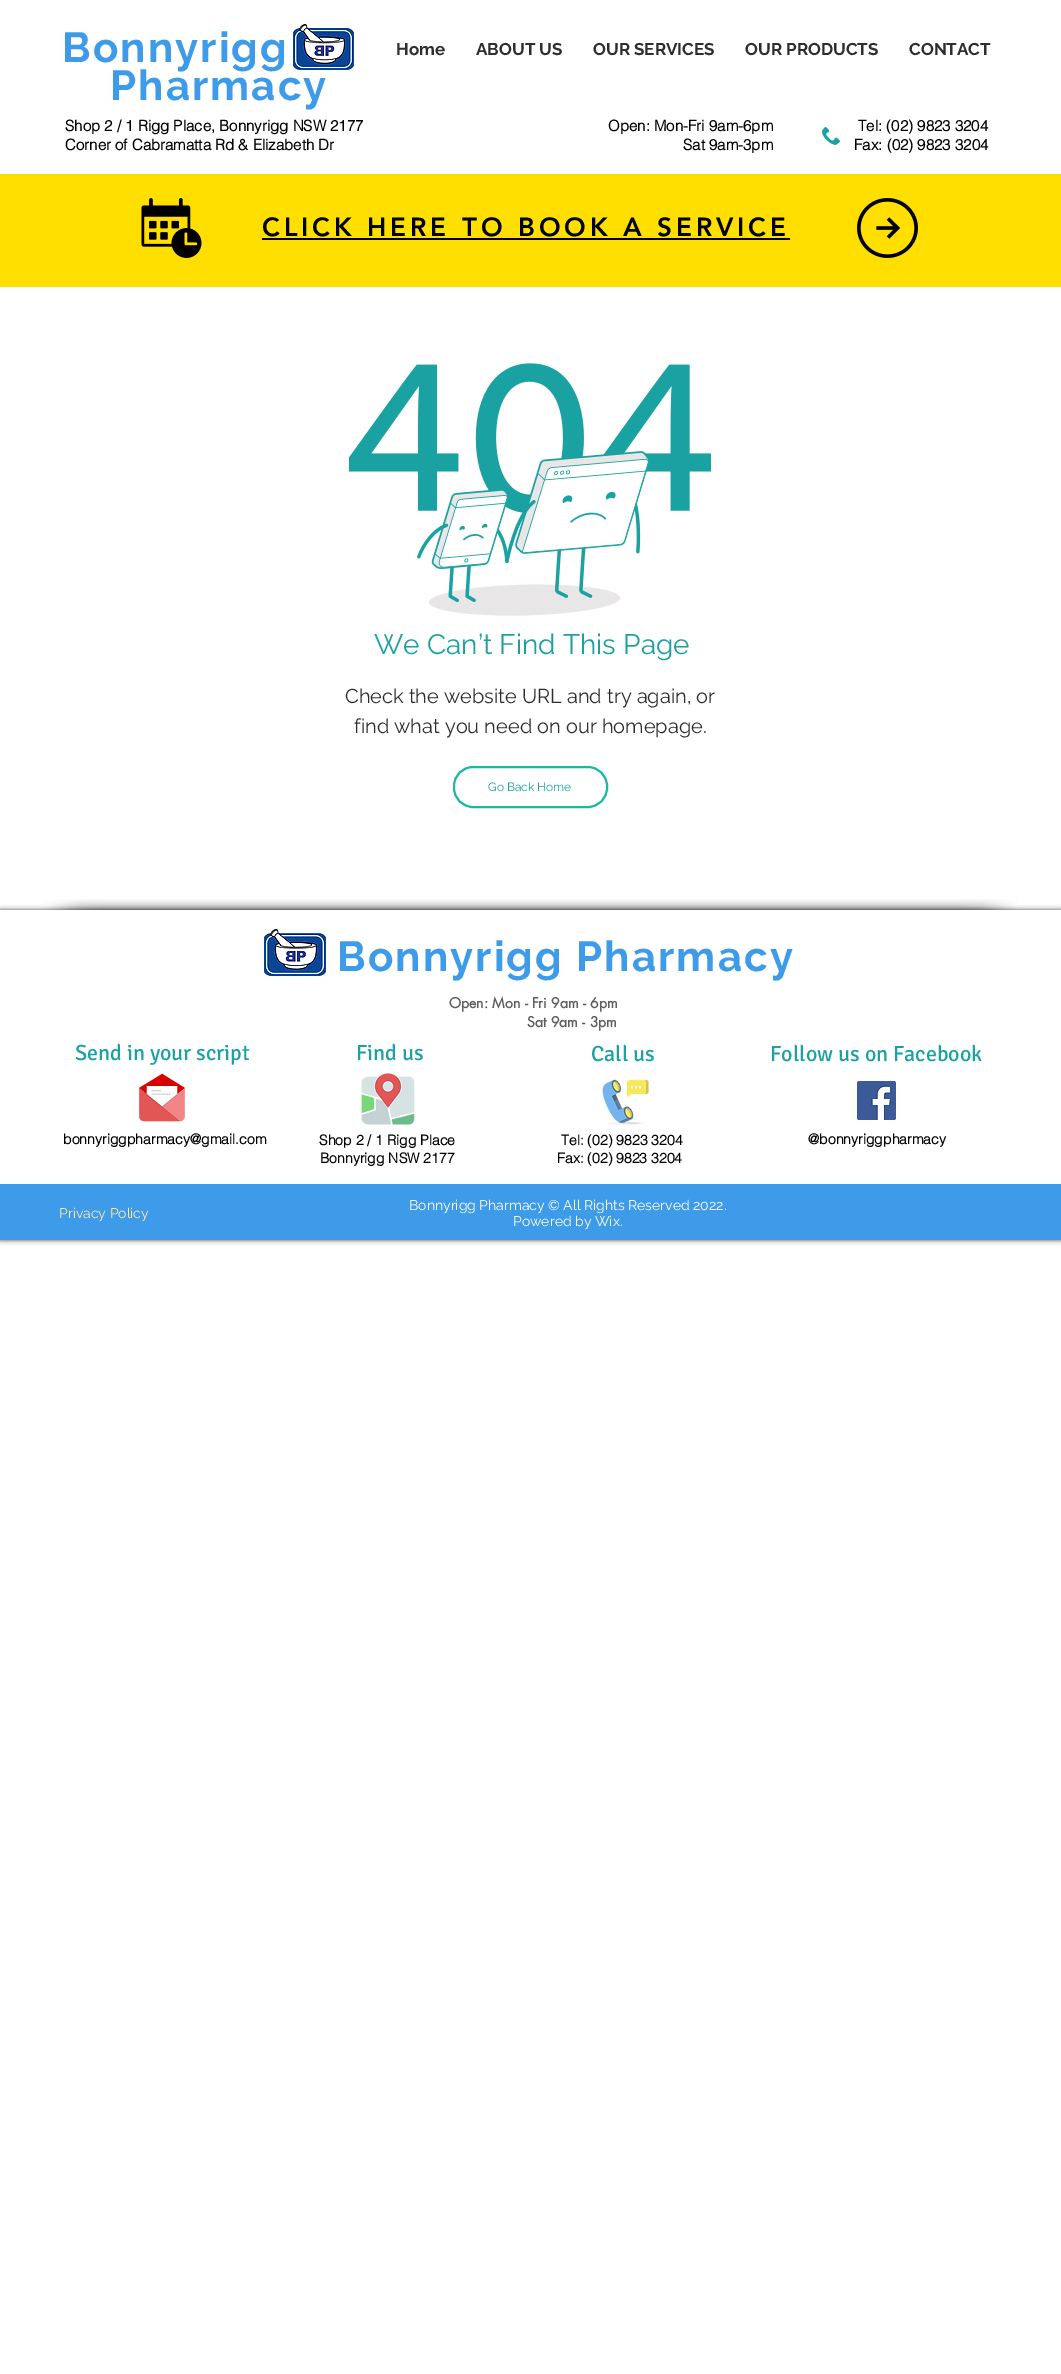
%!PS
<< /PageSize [1061 2374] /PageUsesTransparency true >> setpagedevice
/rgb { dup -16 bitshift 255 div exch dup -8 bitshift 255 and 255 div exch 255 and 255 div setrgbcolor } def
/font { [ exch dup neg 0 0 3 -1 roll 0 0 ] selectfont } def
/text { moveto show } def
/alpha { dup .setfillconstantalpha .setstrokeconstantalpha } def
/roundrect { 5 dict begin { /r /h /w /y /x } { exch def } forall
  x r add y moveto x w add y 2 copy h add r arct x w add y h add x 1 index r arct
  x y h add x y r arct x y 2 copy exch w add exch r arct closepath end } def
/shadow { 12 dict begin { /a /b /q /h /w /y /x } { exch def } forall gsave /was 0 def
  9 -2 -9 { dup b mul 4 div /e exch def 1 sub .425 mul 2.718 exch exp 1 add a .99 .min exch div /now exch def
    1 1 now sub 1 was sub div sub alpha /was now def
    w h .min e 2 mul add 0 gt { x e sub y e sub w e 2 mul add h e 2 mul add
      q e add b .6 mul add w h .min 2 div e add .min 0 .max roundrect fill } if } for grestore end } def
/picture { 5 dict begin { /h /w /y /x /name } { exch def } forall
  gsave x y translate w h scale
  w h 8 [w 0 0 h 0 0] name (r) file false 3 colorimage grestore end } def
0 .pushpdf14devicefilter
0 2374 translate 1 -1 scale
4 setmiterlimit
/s1 { /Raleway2-Bold 17 font 16#2F2E2E rgb } def
/s2 { /helvetica-Bold 15 font 16#000000 rgb } def
/s3 { /Raleway-Regular 28 font 16#1AA1A1 rgb } def
/s4 { /Raleway-Regular 20 font 16#2F2E2E rgb } def
/s5 { /Raleway-Regular 12 font 16#1AA1A1 rgb } def
/s6 { /futura-Bold 14 font 16#605E5E rgb } def
/s7 { /Signika-Regular 22 font 16#1AA1A1 rgb } def
/s8 { /helvetica-Bold 14 font 16#000000 rgb } def
/s9 { /Raleway-Regular 14 font 16#FFE7B4 rgb } def
/s10 { /Raleway-Regular 14 font 16#FFFFFF rgb } def
16#FFFFFF rgb
0 0 1061 2374 rectfill
/Raleway-Bold 42 font
16#3D9BE9 rgb
110 100 moveto 2.1 0 (Pharmacy) ashow
(pic1.raw) 293 24 61 46 picture
62 62 moveto 2.1 0 (Bonnyrigg) ashow
s1
(Home) 396 55 text
(ABOUT US) 476 55 text
(OUR SERVICES) 593 55 text
(OUR PRODUCTS) 745 55 text
(CONTACT) 909 55 text
s2
(Shop 2 / 1 Rigg Place, Bonnyrigg NSW 2177) 65 131 text
(Corner of Cabramatta Rd & Elizabeth Dr) 65 150 text
(Open: Mon-Fri 9am-6pm) 608 131 text
(Sat 9am-3pm) 683 150 text
(pic2.raw) 822 127 18 18 picture
(Tel: \(02\) 9823 3204) 858 131 text
(Fax: \(02\) 9823 3204) 854 150 text
16#FFDF00 rgb
0 174 1061 113 rectfill
(pic3.raw) 141 198 61 60 picture
/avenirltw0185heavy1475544-Black 26 font
16#000000 rgb
262 236 moveto 3.9 0 (CLICK HERE TO BOOK A SERVICE) ashow
262 238 528 2 rectfill
(pic4.raw) 857 198 61 60 picture
(pic5.raw) 349 363 362 253 picture
s3
(We Can’t Find This Page) 374 654 text
s4
(Check the website URL and try again, or) 345 703 text
(find what you need on our homepage.) 354 733 text
16#1CB8A3 rgb
2 setlinewidth
454 767 153 40 19 roundrect stroke
s5
(Go Back Home) 488 791 text
16#000000 rgb
0 910 1061 330 0 2.5 0.7 shadow
16#3D9BE9 rgb
0 1184 1061 56 rectfill
(pic6.raw) 44 899 97 11 picture
(pic7.raw) 141 899 780 11 picture
(pic8.raw) 921 899 97 11 picture
16#FFFFFF rgb
0 910 1061 274 rectfill
(pic9.raw) 264 929 62 47 picture
/Raleway-Bold 42 font
16#3D9BE9 rgb
337 971 moveto 2.1 0 (Bonnyrigg Pharmacy) ashow
s6
(Open: Mon - Fri 9am - 6pm) 449 1008 text
(Sat 9am - 3pm) 527 1027 text
s7
(Send in your script) 75 1060 text
(Find us) 356 1060 text
(Call us) 591 1061 text
(Follow us on Facebook) 770 1061 text
(pic10.raw) 139 1073 46 49 picture
(pic11.raw) 361 1073 54 52 picture
(pic12.raw) 602 1079 47 46 picture
(pic13.raw) 857 1081 39 39 picture
s8
(Shop 2 / 1 Rigg Place) 319 1145 text
(Bonnyrigg NSW 2177) 320 1163 text
(Tel: \(02\) 9823 3204) 561 1145 text
(Fax: \(02\) 9823 3204) 557 1163 text
(bonnyriggpharmacy@gmail.com) 63 1144 text
(@bonnyriggpharmacy) 808 1144 text
s9
(Privacy Policy) 59 1218 text
s10
(Bonnyrigg Pharmacy © All Rights Reserved 2022.) 409 1210 text
(Powered by Wix.) 513 1226 text
.poppdf14devicefilter showpage
